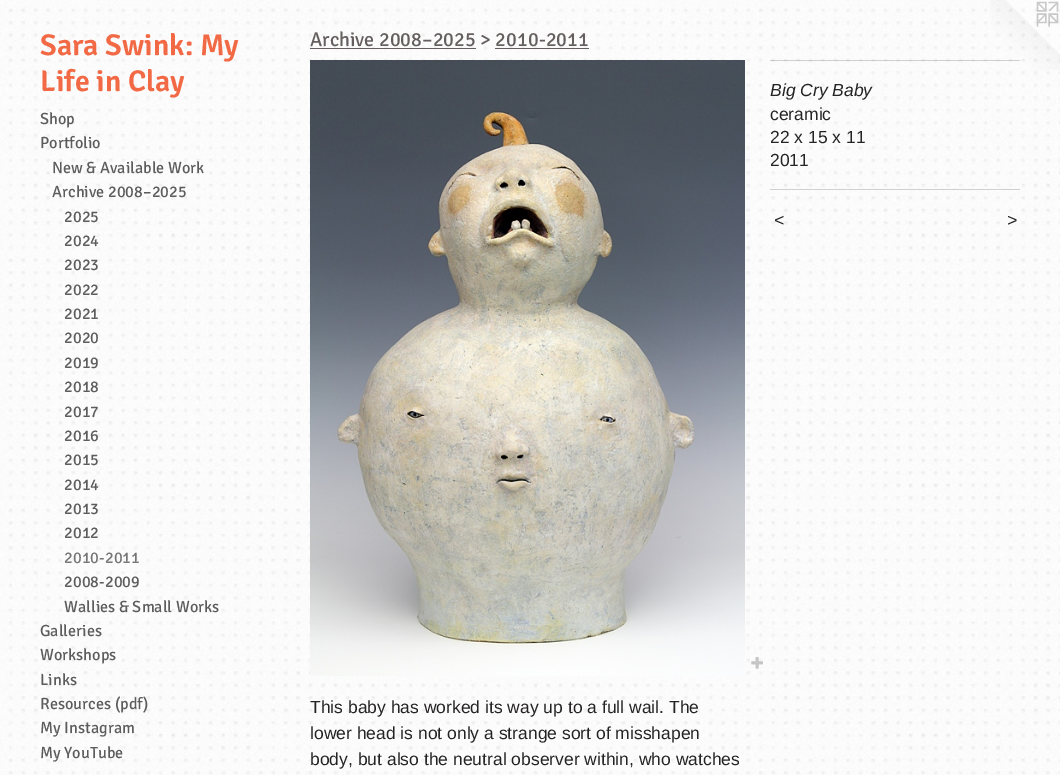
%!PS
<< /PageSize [1060 775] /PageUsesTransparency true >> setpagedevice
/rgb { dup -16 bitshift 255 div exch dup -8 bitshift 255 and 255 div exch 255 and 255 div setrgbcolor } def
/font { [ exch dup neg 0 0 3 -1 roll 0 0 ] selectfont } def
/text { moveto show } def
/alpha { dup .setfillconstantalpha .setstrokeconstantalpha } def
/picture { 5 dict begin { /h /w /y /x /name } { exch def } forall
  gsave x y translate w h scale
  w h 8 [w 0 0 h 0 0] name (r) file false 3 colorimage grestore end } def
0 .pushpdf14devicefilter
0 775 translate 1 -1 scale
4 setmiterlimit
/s1 { /Signika-SemiBold 30 font 16#F26945 rgb } def
/s2 { /Signika-Light 16.25 font 16#5C5C5C rgb } def
/s3 { /Signika-Light 16.25 font 16#767676 rgb } def
/s4 { /Signika-Light 20 font 16#645E5E rgb } def
/s5 { /LiberationSans-Italic 17.5 font 16#252323 rgb } def
/s6 { /LiberationSans-Regular 17.5 font 16#252323 rgb } def
16#FFFFFF rgb
0 0 1060 775 rectfill
(pic1.raw) 0 0 1060 775 picture
s1
(Sara Swink: My) 40 55 text
(Life in Clay) 40 91 text
s2
(Shop) 40 124 text
(Portfolio) 40 148 text
(New & Available Work) 52 173 text
(Archive 2008–2025) 52 197 text
(2025) 64 222 text
(2024) 64 246 text
(2023) 64 270 text
(2022) 64 295 text
(2021) 64 319 text
(2020) 64 343 text
(2019) 64 368 text
(2018) 64 392 text
(2017) 64 417 text
(2016) 64 441 text
(2015) 64 465 text
(2014) 64 490 text
(2013) 64 514 text
(2012) 64 538 text
s3
(2010-2011) 64 563 text
s2
(2008-2009) 64 587 text
(Wallies & Small Works) 64 612 text
(Galleries) 40 636 text
(Workshops) 40 660 text
(Links) 40 685 text
(Resources \(pdf\)) 40 709 text
(My Instagram) 40 733 text
(My YouTube) 40 758 text
s4
(Archive 2008–2025 > 2010-2011) 310 46 text
310 48 166 1 rectfill
495 48 94 1 rectfill
(pic2.raw) 310 60 435 616 picture
(pic3.raw) 751 657 12 12 picture
(pic4.raw) 990 0 70 70 picture
0.2 alpha
16#252323 rgb
770 60 250 1 rectfill
1 alpha
s5
(Big Cry Baby) 770 96 text
s6
(ceramic) 770 120 text
(22 x 15 x 11) 770 143 text
(2011) 770 166 text
0.2 alpha
770 189 250 1 rectfill
/LiberationSans-Italic 17.5 font
1 alpha
774 226 moveto 1 0 (<) ashow
1007 226 moveto 1 0 (>) ashow
s6
(This baby has worked its way up to a full wail. The) 310 713 text
(lower head is not only a strange sort of misshapen) 310 739 text
(body, but also the neutral observer within, who watches) 310 765 text
.poppdf14devicefilter showpage
